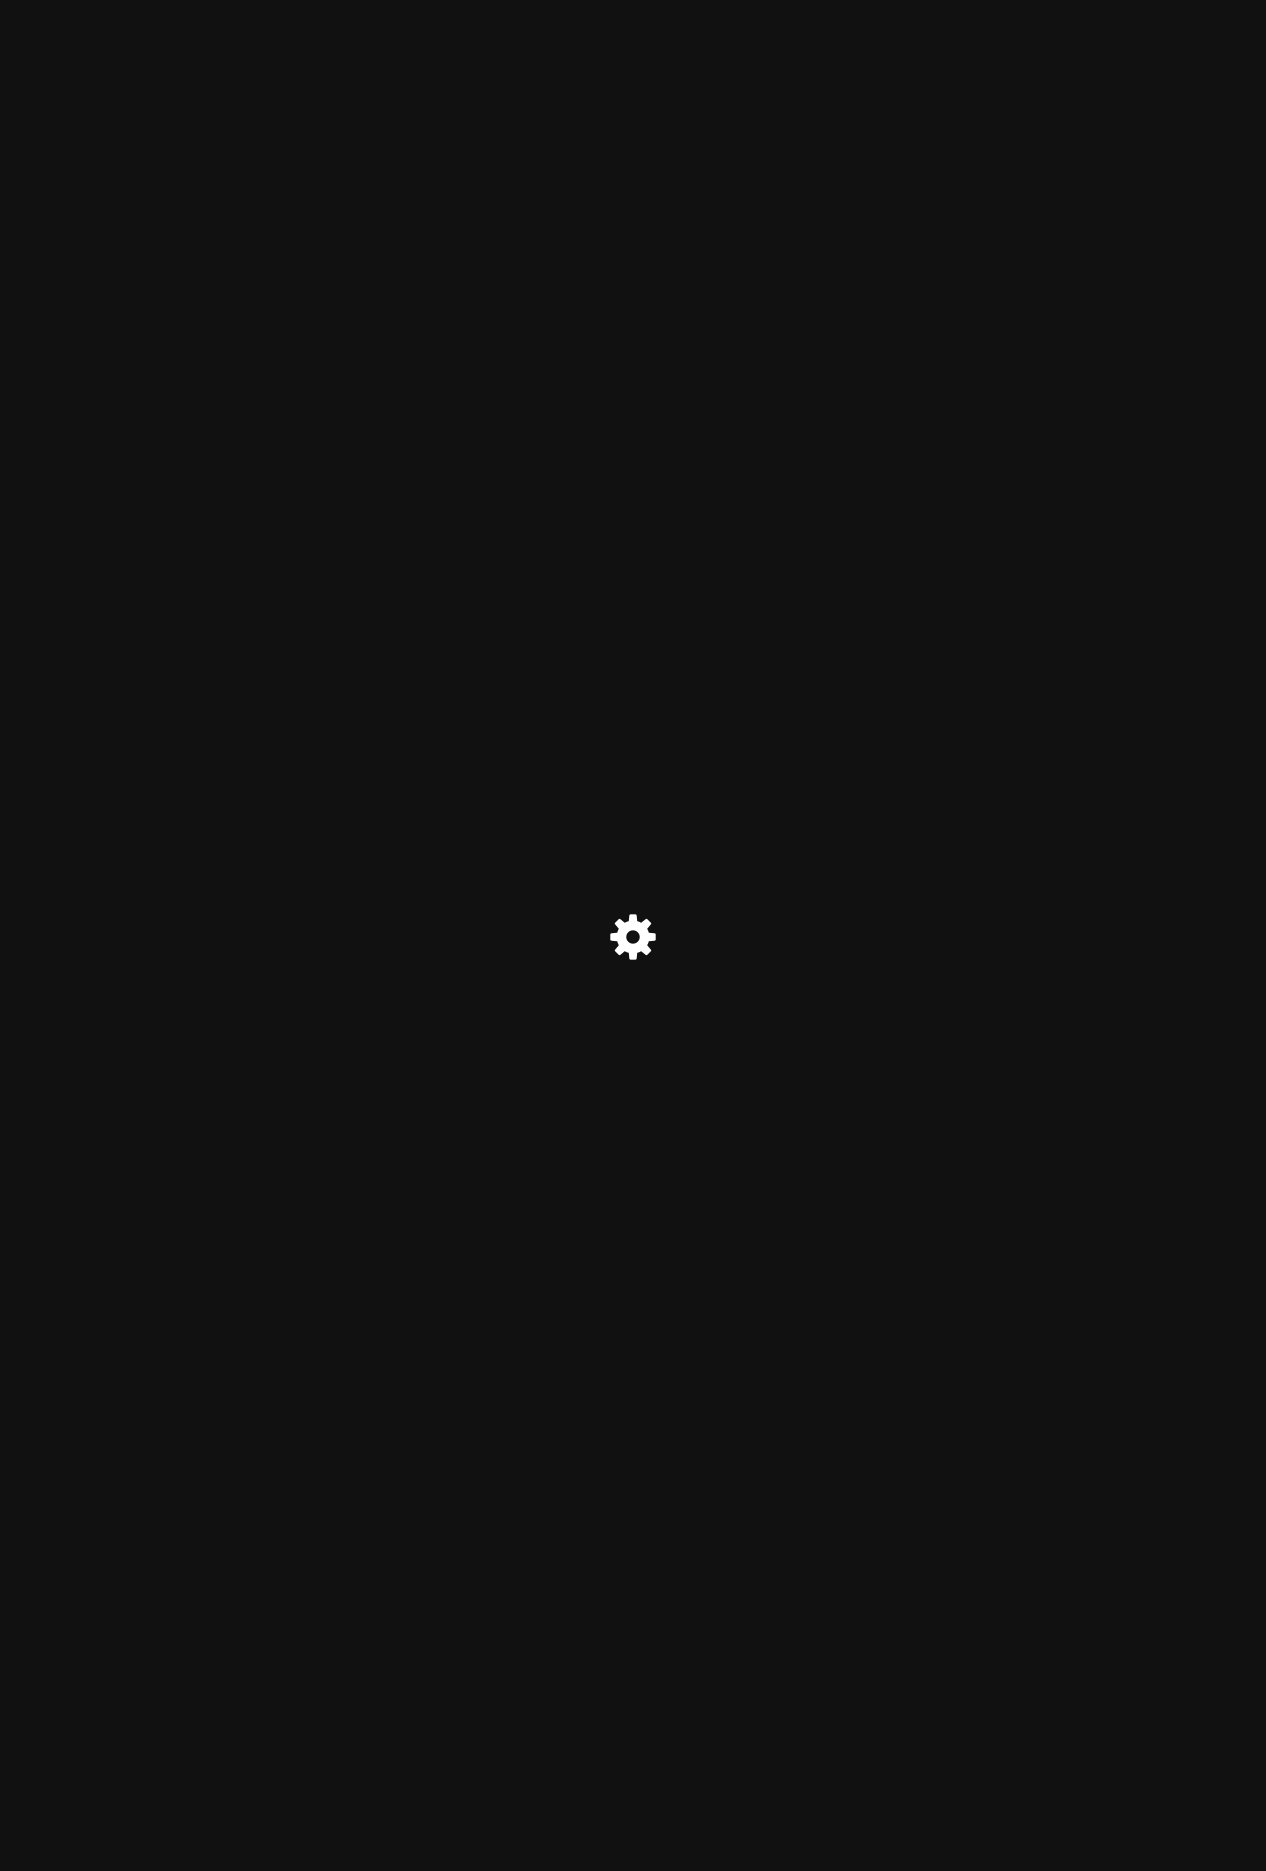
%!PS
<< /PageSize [1266 1871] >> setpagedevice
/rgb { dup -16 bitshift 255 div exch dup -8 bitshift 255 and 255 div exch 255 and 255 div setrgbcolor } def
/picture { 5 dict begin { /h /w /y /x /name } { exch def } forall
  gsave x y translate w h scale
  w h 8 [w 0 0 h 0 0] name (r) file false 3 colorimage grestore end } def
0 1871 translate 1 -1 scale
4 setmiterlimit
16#111111 rgb
0 0 1266 1871 rectfill
(pic1.raw) 610 914 46 46 picture
showpage
